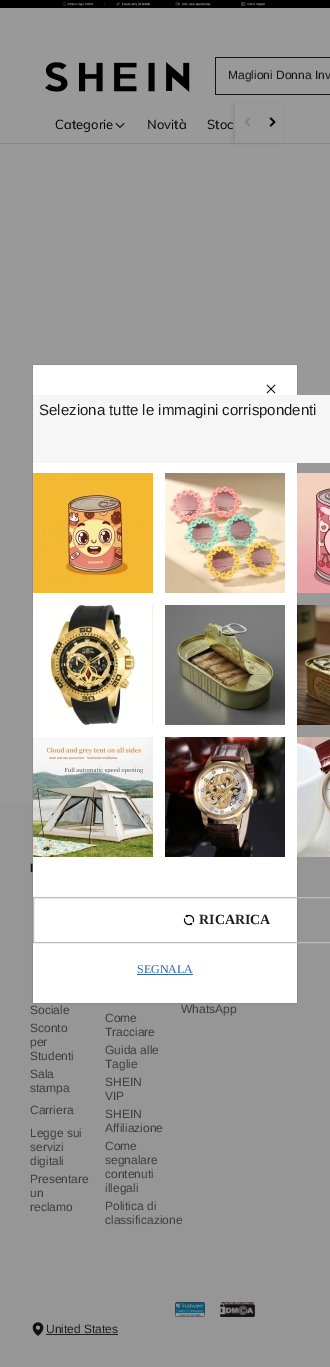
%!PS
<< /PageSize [330 1367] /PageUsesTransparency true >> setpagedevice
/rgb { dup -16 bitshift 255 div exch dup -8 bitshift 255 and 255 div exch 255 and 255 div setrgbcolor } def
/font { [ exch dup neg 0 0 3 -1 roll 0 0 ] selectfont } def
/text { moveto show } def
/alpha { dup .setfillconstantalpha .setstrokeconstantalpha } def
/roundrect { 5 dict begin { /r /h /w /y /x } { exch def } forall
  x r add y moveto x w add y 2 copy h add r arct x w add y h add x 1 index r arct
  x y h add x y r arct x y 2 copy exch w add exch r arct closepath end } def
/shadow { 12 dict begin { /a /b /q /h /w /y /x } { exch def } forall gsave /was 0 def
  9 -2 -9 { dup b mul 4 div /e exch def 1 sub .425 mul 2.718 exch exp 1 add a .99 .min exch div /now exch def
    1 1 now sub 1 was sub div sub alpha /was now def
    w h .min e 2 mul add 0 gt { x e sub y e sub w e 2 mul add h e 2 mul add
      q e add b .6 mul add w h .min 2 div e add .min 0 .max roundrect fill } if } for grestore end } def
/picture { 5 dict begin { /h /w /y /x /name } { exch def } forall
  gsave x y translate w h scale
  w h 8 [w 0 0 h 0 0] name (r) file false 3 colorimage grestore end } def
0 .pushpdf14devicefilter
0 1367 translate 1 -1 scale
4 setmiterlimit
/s1 { /LiberationSans-Regular 12 font 16#141414 rgb } def
/s2 { /Muli-Regular 13 font 16#000000 rgb } def
/s3 { /LiberationSans-Bold 12 font 16#141414 rgb } def
/s4 { /LiberationSans-Regular 12 font 16#3D3D3D rgb } def
/s5 { /LiberationSans-Regular 12 font 16#1E1E1E rgb } def
/s6 { /LiberationSans-Regular 15 font 16#1E1E1E rgb } def
/s7 { /LiberationSerif-Bold 14 font 16#1E1E1E rgb } def
/s8 { /LiberationSerif-Regular 12 font 16#2D68A8 rgb } def
16#999999 rgb
0 0 330 1367 rectfill
(pic1.raw) 0 0 330 8 picture
16#898989 rgb
0 143 330 1 rectfill
16#000000 rgb
233 104 50 39 0 1.5 0.08 shadow
16#999999 rgb
233 103 50 1 rectfill
(pic2.raw) 45 62 145 30 picture
16#141414 rgb
215 57 115 1 rectfill
215 94 115 1 rectfill
215 57 1 38 rectfill
s1
(Maglioni Donna Inv) 228 79 text
s2
(Categorie) 55 129 text
(pic3.raw) 115 123 10 5 picture
(Novità) 147 129 text
(Stoc) 207 129 text
16#999999 rgb
235 104 49 39 rectfill
(pic4.raw) 244 117 7 10 picture
(pic5.raw) 269 117 7 10 picture
16#969696 rgb
0 802 330 565 rectfill
s3
(I) 30 872 text
s4
(Sociale) 30 1014 text
(Sconto) 30 1032 text
(per) 30 1046 text
(Studenti) 30 1060 text
(Sala) 30 1078 text
(stampa) 30 1092 text
(Carriera) 30 1114 text
(Legge sui) 30 1137 text
(servizi) 30 1151 text
(digitali) 30 1165 text
(Presentare) 30 1183 text
(un) 30 1197 text
(reclamo) 30 1211 text
(WhatsApp) 181 1013 text
(Come) 105 1022 text
(Tracciare) 105 1036 text
(Guida alle) 105 1054 text
(Taglie) 105 1068 text
(SHEIN) 105 1086 text
(VIP) 105 1100 text
(SHEIN) 105 1118 text
(Affiliazione) 105 1132 text
(Come) 105 1150 text
(segnalare) 105 1164 text
(contenuti) 105 1178 text
(illegali) 105 1192 text
(Politica di) 105 1210 text
(classificazione) 105 1224 text
(pic6.raw) 175 1302 30 15 picture
(pic7.raw) 220 1302 35 15 picture
(pic8.raw) 32 1322 12 14 picture
s5
(United States) 46 1333 text
46 1334 72 1 rectfill
16#000000 rgb
33 365 264 638 0 0.5 0.3 shadow
16#FFFFFF rgb
33 365 264 638 rectfill
(pic9.raw) 266 384 10 10 picture
16#F6F6F6 rgb
33 395 297 68 rectfill
s6
(Seleziona tutte le immagini corrispondenti) 39 415 text
(pic10.raw) 33 473 120 120 picture
(pic11.raw) 165 473 120 120 picture
(pic12.raw) 297 473 33 120 picture
(pic13.raw) 49 605 104 120 picture
(pic14.raw) 165 605 120 120 picture
(pic15.raw) 297 605 33 120 picture
(pic16.raw) 33 737 120 120 picture
(pic17.raw) 165 737 120 120 picture
(pic18.raw) 297 737 33 120 picture
16#BBBBBB rgb
33.5 897.5 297 45 rectstroke
(pic19.raw) 183 914 12 12 picture
s7
(RICARICA) 199 924 text
s8
(SEGNALA) 137 973 text
137 974 56 1 rectfill
.poppdf14devicefilter showpage
